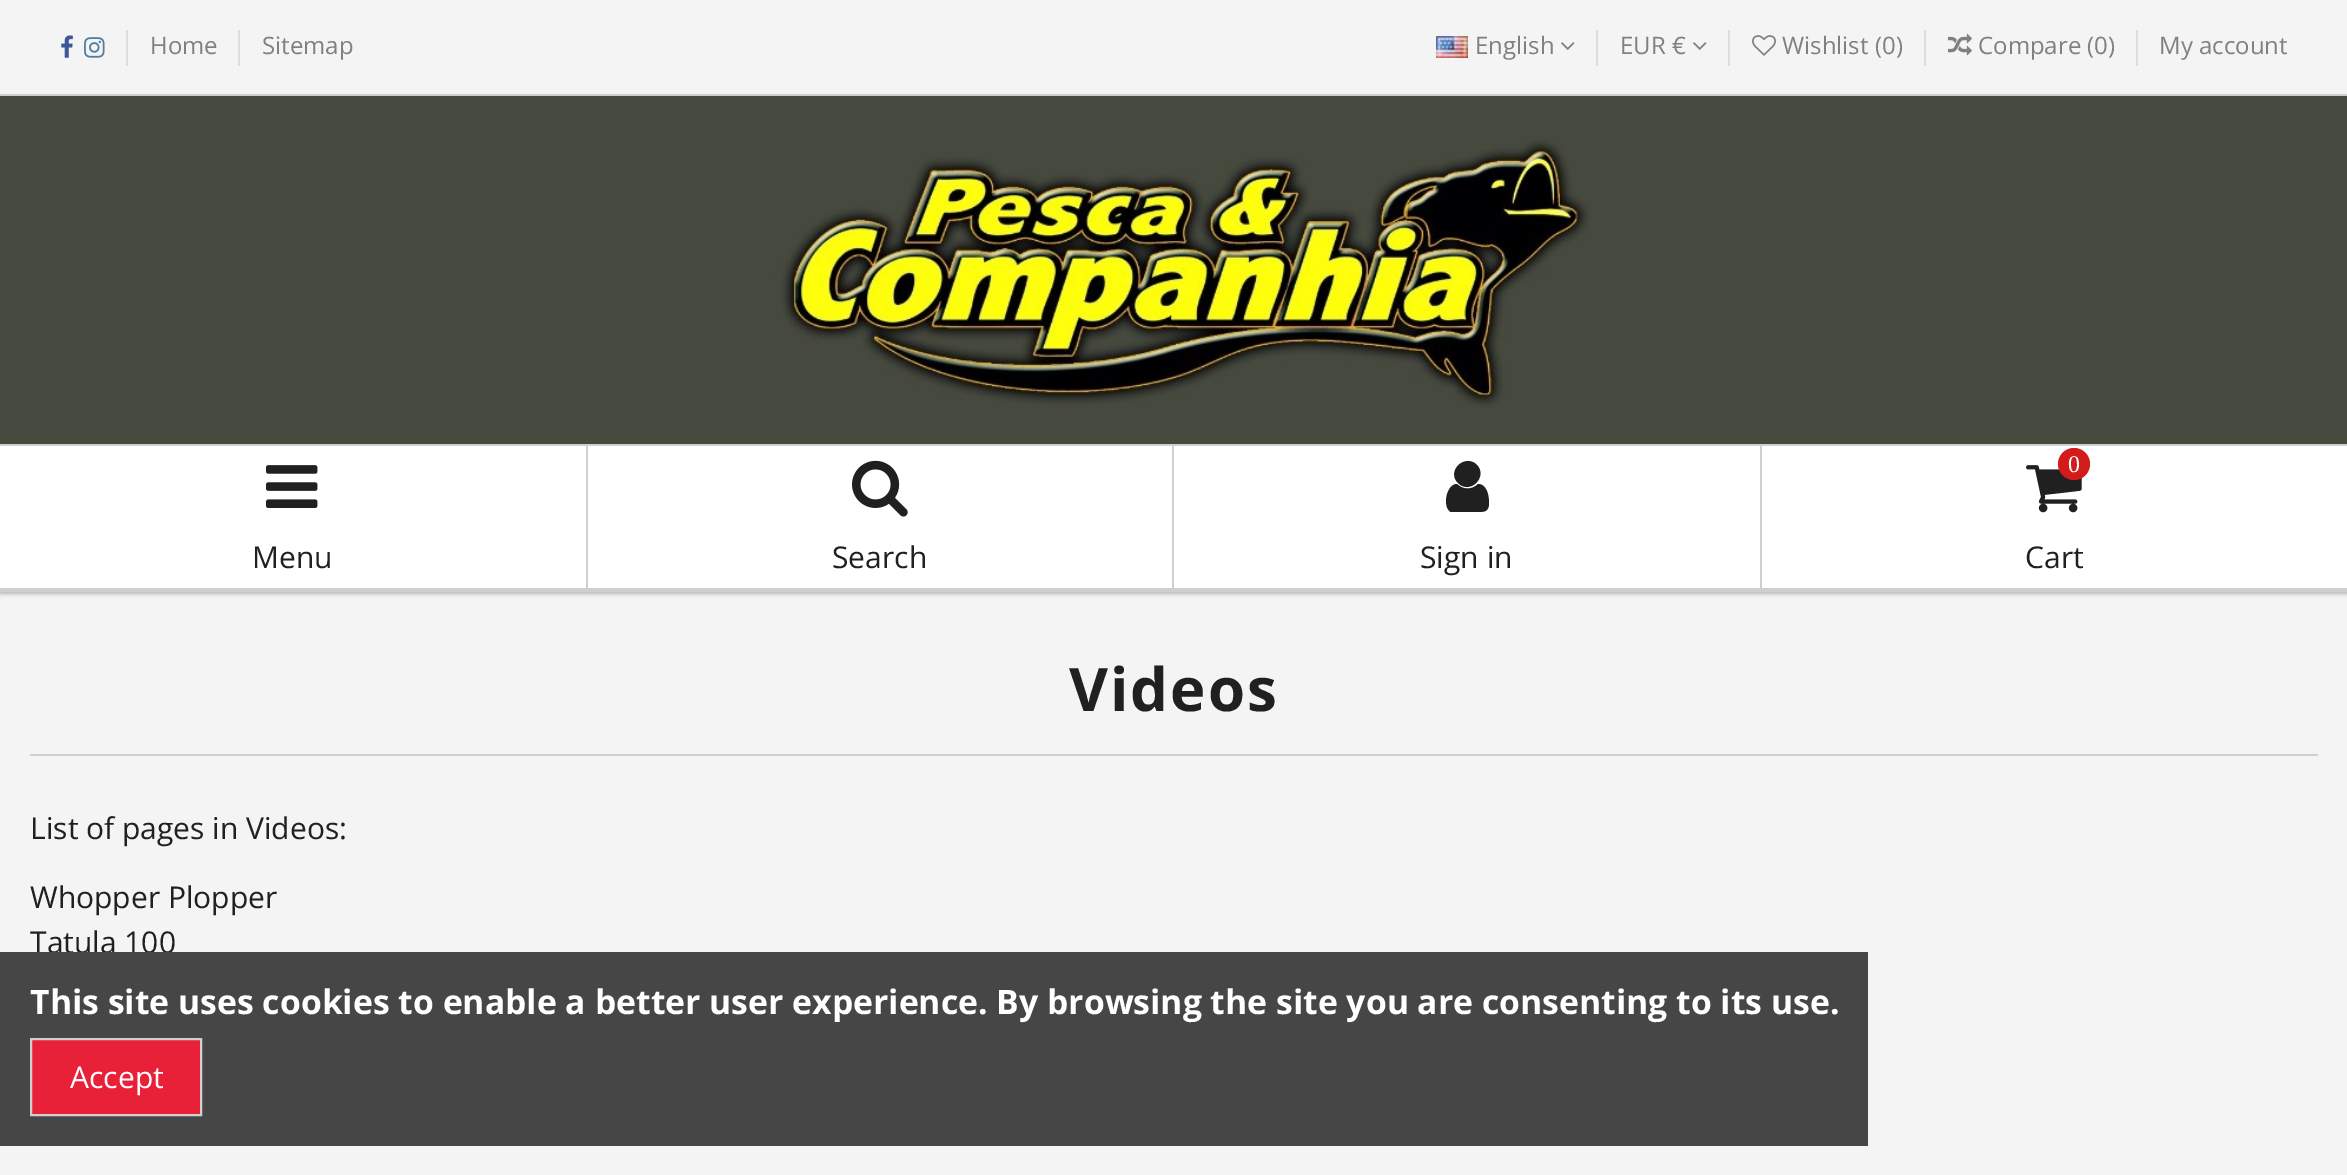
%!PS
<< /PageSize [2347 1175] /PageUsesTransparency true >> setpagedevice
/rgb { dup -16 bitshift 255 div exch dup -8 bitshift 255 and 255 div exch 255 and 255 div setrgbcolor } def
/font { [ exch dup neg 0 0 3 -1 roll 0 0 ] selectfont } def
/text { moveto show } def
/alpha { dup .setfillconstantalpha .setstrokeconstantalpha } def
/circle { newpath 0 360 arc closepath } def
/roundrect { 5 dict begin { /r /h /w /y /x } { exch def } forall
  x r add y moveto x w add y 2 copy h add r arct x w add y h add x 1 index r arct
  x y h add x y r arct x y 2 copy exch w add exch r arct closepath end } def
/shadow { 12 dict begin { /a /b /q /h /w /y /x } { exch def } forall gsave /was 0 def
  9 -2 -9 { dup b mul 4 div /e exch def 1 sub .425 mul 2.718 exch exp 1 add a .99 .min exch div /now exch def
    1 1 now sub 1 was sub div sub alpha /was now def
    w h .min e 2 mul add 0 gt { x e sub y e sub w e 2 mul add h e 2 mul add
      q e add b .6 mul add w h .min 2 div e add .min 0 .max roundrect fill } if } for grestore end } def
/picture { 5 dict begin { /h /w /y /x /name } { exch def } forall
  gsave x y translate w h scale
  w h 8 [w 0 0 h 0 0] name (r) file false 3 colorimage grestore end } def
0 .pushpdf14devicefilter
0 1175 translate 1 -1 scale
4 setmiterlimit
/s1 { /OpenSans-Regular 24 font 16#808080 rgb } def
/s2 { /OpenSans-Regular 30 font 16#202020 rgb } def
/s3 { /LiberationSerif-Regular 24 font 16#FFFFFF rgb } def
/s4 { /OpenSans-Bold 33.75 font 16#FFFFFF rgb } def
/s5 { /OpenSans-Regular 30 font 16#FFFFFF rgb } def
16#F4F4F4 rgb
0 0 2347 1175 rectfill
16#000000 rgb
0 98 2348 496 0 2 0.25 shadow
16#CFCFCF rgb
0 94 2347 2 rectfill
(pic1.raw) 61 35 12 23 picture
(pic2.raw) 84 37 21 21 picture
16#DDDDDD rgb
126 30 2 36 rectfill
s1
(Home) 150 54 text
16#DDDDDD rgb
238 30 2 36 rectfill
s1
(Sitemap) 262 54 text
(pic3.raw) 1436 36 32 22 picture
(English) 1475 54 text
(pic4.raw) 1561 42 14 8 picture
16#DDDDDD rgb
1596 30 2 36 rectfill
s1
(EUR €) 1620 54 text
(pic4.raw) 1693 42 14 8 picture
16#DDDDDD rgb
1728 30 2 36 rectfill
(pic5.raw) 1752 35 24 21 picture
s1
(Wishlist \(0\)) 1782 54 text
16#DDDDDD rgb
1924 30 2 36 rectfill
(pic6.raw) 1948 33 24 23 picture
s1
(Compare \(0\)) 1978 54 text
16#DDDDDD rgb
2136 30 2 36 rectfill
s1
(My account) 2159 54 text
16#FFFFFF rgb
0 446 2347 142 rectfill
16#CFCFCF rgb
0 590 2347 2 rectfill
(pic7.raw) 0 96 2347 348 picture
0 444 2347 2 rectfill
586 444 2 146 rectfill
0 588 588 2 rectfill
(pic8.raw) 266 465 52 43 picture
s2
(Menu) 252 568 text
16#CFCFCF rgb
1172 444 2 146 rectfill
588 588 586 2 rectfill
(pic9.raw) 852 460 56 57 picture
s2
(Search) 832 568 text
16#CFCFCF rgb
1760 444 2 146 rectfill
1174 588 1173 2 rectfill
16#202020 rgb
1489 503 moveto 1489 512 1484 512 1477 512 curveto 1451 512 lineto 1442 508 1446 484 1457 484 curveto 1463 490 1472 490 1478 484 curveto 1487 484 1489 496 1489 503 curveto closepath 1477 465 moveto 1488 477 1470 495 1458 483 curveto 1446 471 1465 453 1477 465 curveto closepath fill
(Sign in) 1420 568 text
(pic10.raw) 2026 465 56 48 picture
16#D31B1B rgb
2074 464 16 circle fill
s3
(0) 2068 472 text
s2
(Cart) 2025 568 text
16#CFCFCF rgb
30 754 2288 2 rectfill
/OpenSans-Bold 60 font
16#202020 rgb
1069 711 moveto 2 0 (Videos) ashow
s2
(List of pages in Videos:) 30 839 text
(Whopper Plopper) 30 908 text
(Tatula 100) 30 953 text
16#464646 rgb
0 952 1868 194 rectfill
s4
(This site uses cookies to enable a better user experience. By browsing the site you are consenting to its use.) 30 1014 text
16#E82139 rgb
31 1039 moveto 201 1039 lineto 201 1115 lineto 31 1115 lineto closepath gsave fill grestore
16#CFCFCF rgb
2 setlinewidth
stroke
s5
(Accept) 70 1088 text
.poppdf14devicefilter showpage
